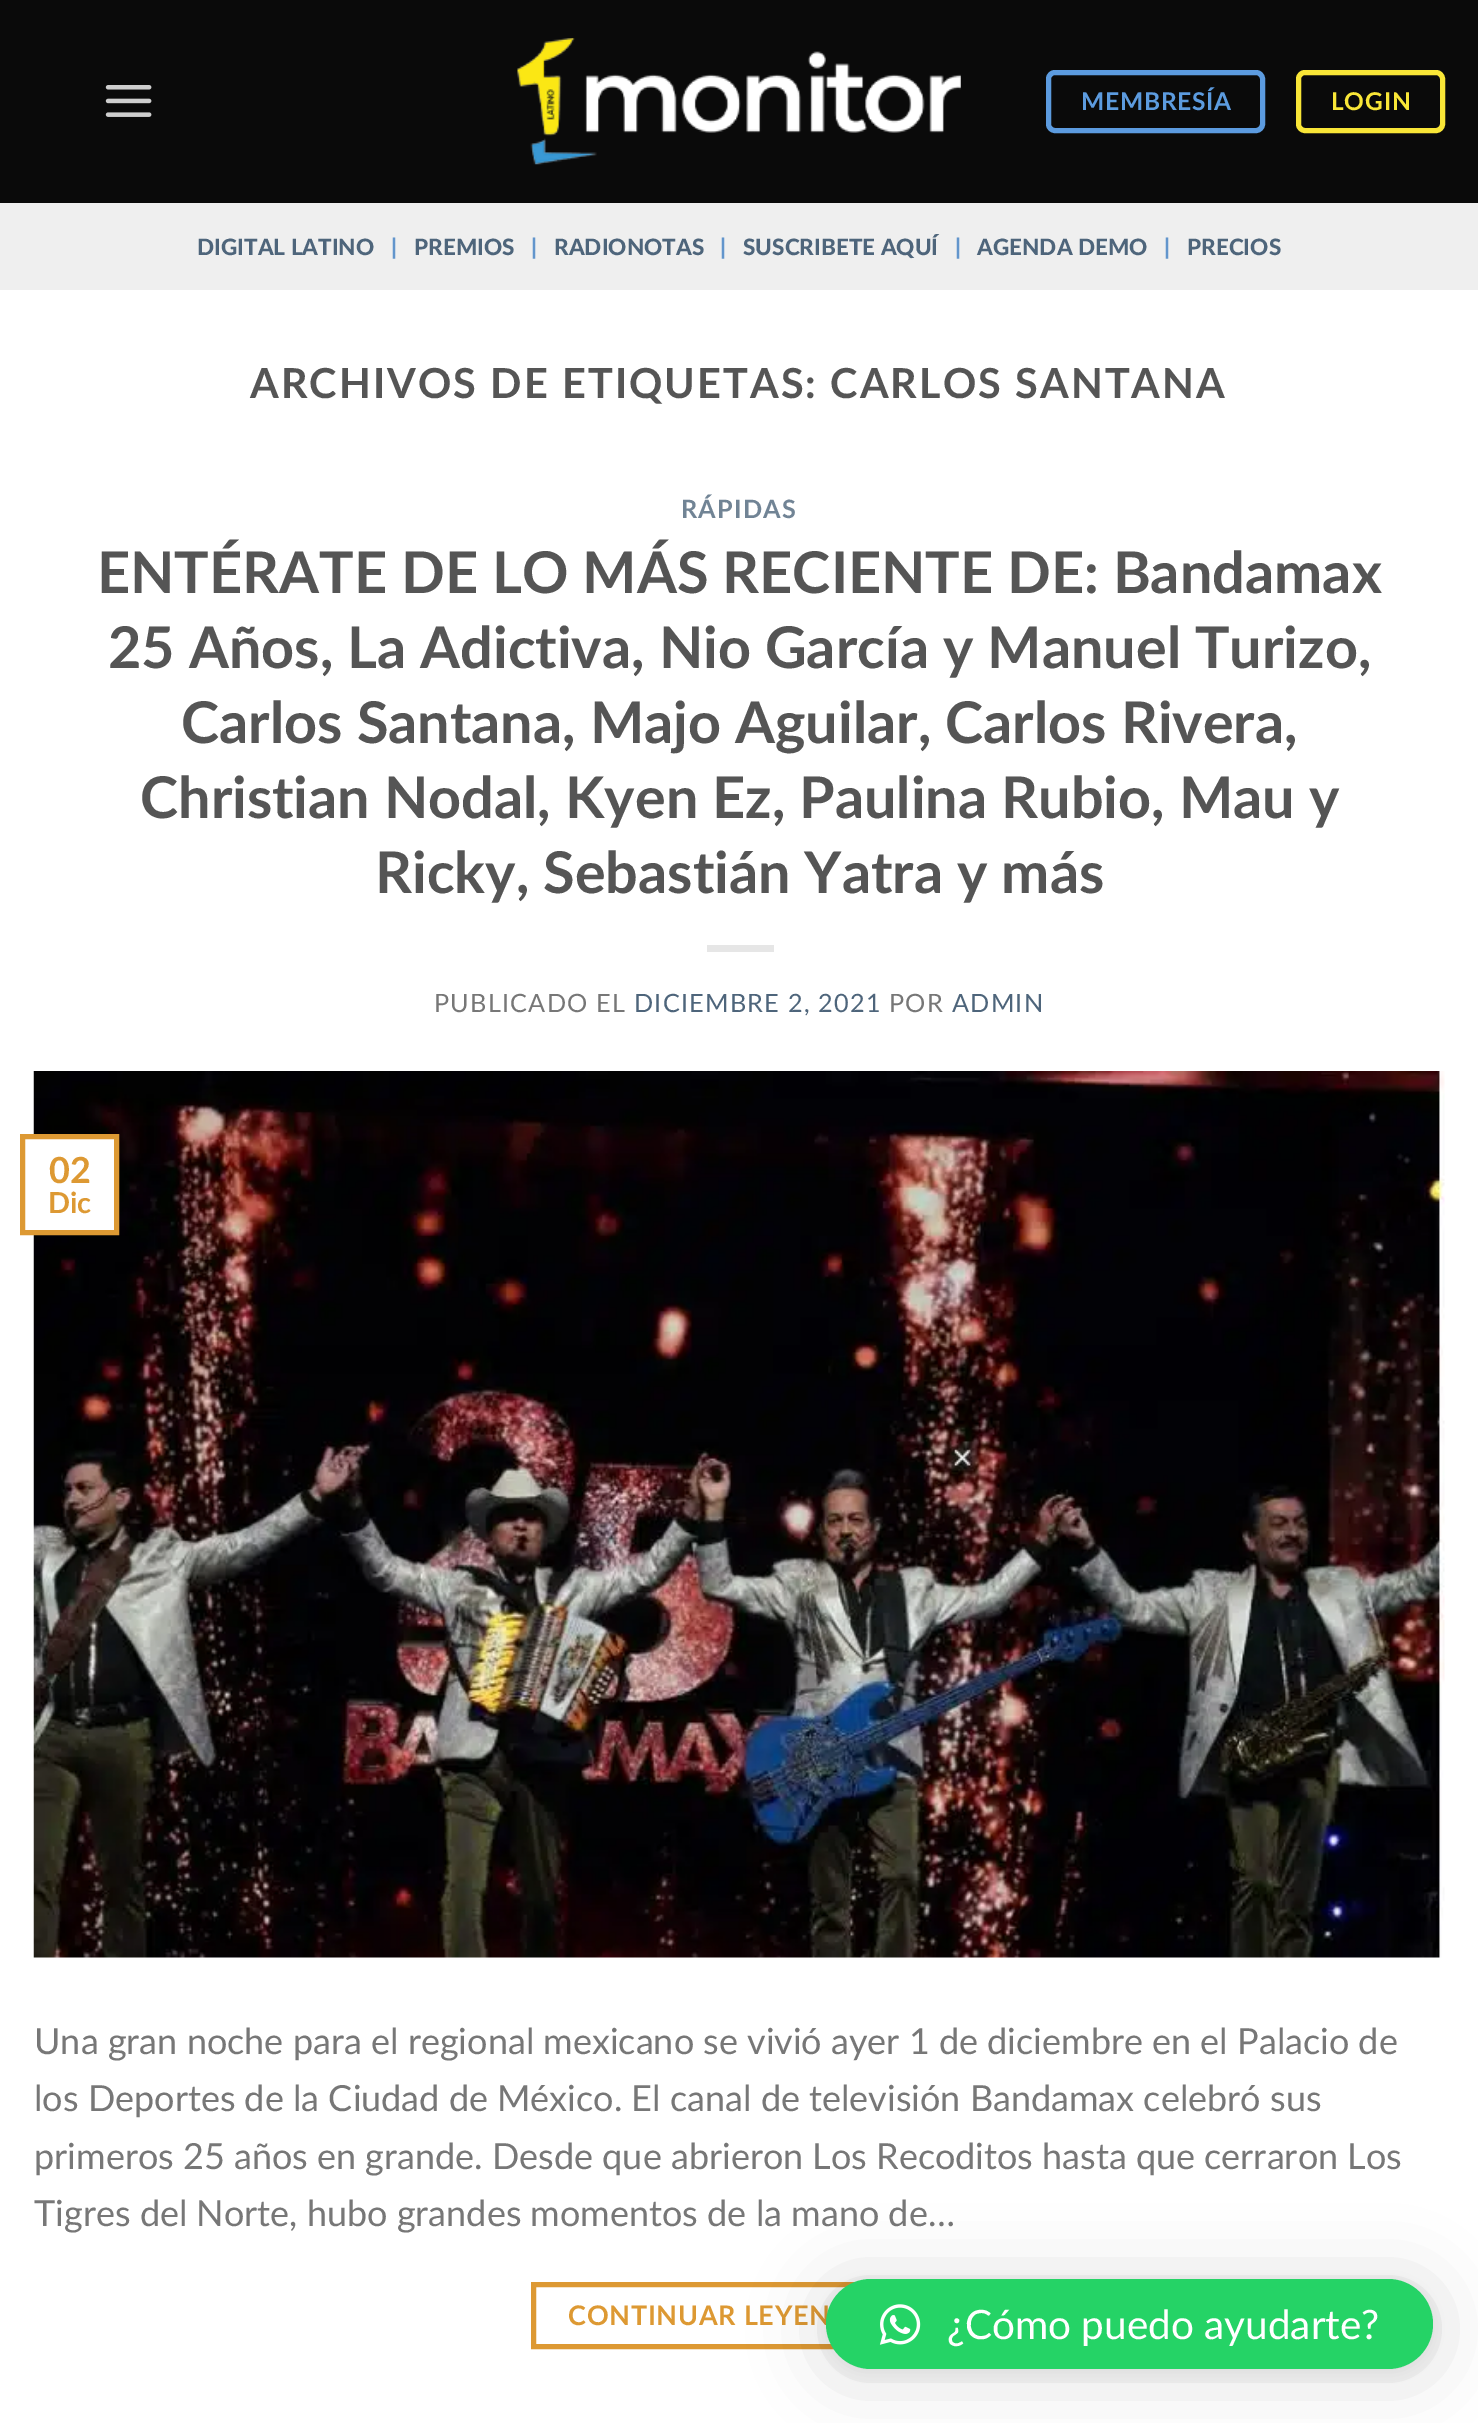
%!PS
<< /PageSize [1478 2423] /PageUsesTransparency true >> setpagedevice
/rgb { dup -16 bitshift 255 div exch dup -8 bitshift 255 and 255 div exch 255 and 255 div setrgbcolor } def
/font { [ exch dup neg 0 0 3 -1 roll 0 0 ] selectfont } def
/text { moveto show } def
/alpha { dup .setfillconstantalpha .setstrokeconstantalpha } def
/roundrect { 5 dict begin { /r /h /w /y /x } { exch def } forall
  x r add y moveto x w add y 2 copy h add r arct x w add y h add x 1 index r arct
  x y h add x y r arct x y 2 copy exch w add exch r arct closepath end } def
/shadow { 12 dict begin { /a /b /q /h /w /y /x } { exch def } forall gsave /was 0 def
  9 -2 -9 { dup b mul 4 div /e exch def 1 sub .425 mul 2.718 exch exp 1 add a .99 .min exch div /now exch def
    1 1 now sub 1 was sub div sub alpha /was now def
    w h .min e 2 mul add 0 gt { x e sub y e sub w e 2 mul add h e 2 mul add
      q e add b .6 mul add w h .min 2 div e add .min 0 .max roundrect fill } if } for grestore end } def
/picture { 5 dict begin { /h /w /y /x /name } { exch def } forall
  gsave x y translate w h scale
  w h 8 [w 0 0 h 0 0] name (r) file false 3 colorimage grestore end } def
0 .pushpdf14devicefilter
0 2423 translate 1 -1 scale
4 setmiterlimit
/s1 { /Lato-Black 22.5 font 16#4E657B rgb } def
/s2 { /Lato-Black 22.5 font 16#6295CC rgb } def
/s3 { /Lato-Bold 57.6 font 16#555555 rgb } def
/s4 { /Lato-Bold 36 font 16#DD9933 rgb } def
/s5 { /Lato-Bold 29 font 16#DD9933 rgb } def
/s6 { /Lato-Regular 36 font 16#777777 rgb } def
/s7 { /Lato-Regular 40.5 font 16#FFFFFF rgb } def
16#FFFFFF rgb
0 0 1478 2423 rectfill
16#0A0A0A rgb
0 0 1478 203 rectfill
(pic1.raw) 105 85 47 32 picture
(pic2.raw) 517 38 444 127 picture
16#5C9BDF rgb
5 setlinewidth
1048.5 72.5 214 58 6.5 roundrect stroke
/Lato-Bold 24.5 font
1081 110 moveto 0.75 0 (MEMBRESÍA) ashow
16#F9E637 rgb
1298.5 72.5 144 58 6.5 roundrect stroke
1331 110 moveto 0.75 0 (LOGIN) ashow
16#EFEFEF rgb
0 203 1478 87 rectfill
s1
(DIGITAL LATINO) 197 255 text
s2
(|) 391 255 text
s1
(PREMIOS) 414 255 text
s2
(|) 531 255 text
s1
(RADIONOTAS) 554 255 text
s2
(|) 720 255 text
s1
(SUSCRIBETE AQUÍ) 743 255 text
s2
(|) 955 255 text
s1
(AGENDA DEMO) 977 255 text
s2
(|) 1164 255 text
s1
(PRECIOS) 1187 255 text
/Lato-Bold 41.4 font
16#555555 rgb
250 398 moveto 2.05 0 (ARCHIVOS DE ETIQUETAS: CARLOS SANTANA) ashow
/Lato-Bold 25.25 font
16#718495 rgb
681 518 moveto 1.25 0 (RÁPIDAS) ashow
s3
(ENTÉRATE DE LO MÁS RECIENTE DE: Bandamax) 97 593 text
(25 Años, La Adictiva, Nio García y Manuel Turizo,) 108 668 text
(Carlos Santana, Majo Aguilar, Carlos Rivera,) 181 743 text
(Christian Nodal, Kyen Ez, Paulina Rubio, Mau y) 140 818 text
(Ricky, Sebastián Yatra y más) 375 893 text
16#E6E6E6 rgb
707 945 67 7 rectfill
/Lato-Regular 25.25 font
16#777777 rgb
434 1012 moveto 1.25 0 (PUBLICADO EL) ashow
16#4E657B rgb
634 1012 moveto 1.25 0 (DICIEMBRE 2, 2021) ashow
16#777777 rgb
889 1012 moveto 1.25 0 (POR) ashow
16#4E657B rgb
952 1012 moveto 1.25 0 (ADMIN) ashow
(pic3.raw) 33 1071 1412 887 picture
16#FFFFFF rgb
33 1139 81 91 rectfill
16#DD9933 rgb
22.5 1136.5 94 96 rectstroke
s4
(02) 49 1183 text
s5
(Dic) 48 1213 text
s6
(Una gran noche para el regional mexicano se vivió ayer 1 de diciembre en el Palacio de) 34 2054 text
(los Deportes de la Ciudad de México. El canal de televisión Bandamax celebró sus) 34 2111 text
(primeros 25 años en grande. Desde que abrieron Los Recoditos hasta que cerraron Los) 34 2169 text
(Tigres del Norte, hubo grandes momentos de la mano de…) 34 2226 text
16#DD9933 rgb
533.5 2284.5 411 62 rectstroke
/Lato-Bold 27 font
568 2325 moveto 0.75 0 (CONTINUAR LEYEN) ashow
16#000000 rgb
826 2284 607 90 45 36 0.16 shadow
826 2282 607 90 45 7 0.06 shadow
16#25D366 rgb
826 2279 607 90 45 roundrect fill
(pic4.raw) 879 2304 42 41 picture
s7
(¿Cómo puedo ayudarte?) 947 2339 text
.poppdf14devicefilter showpage
